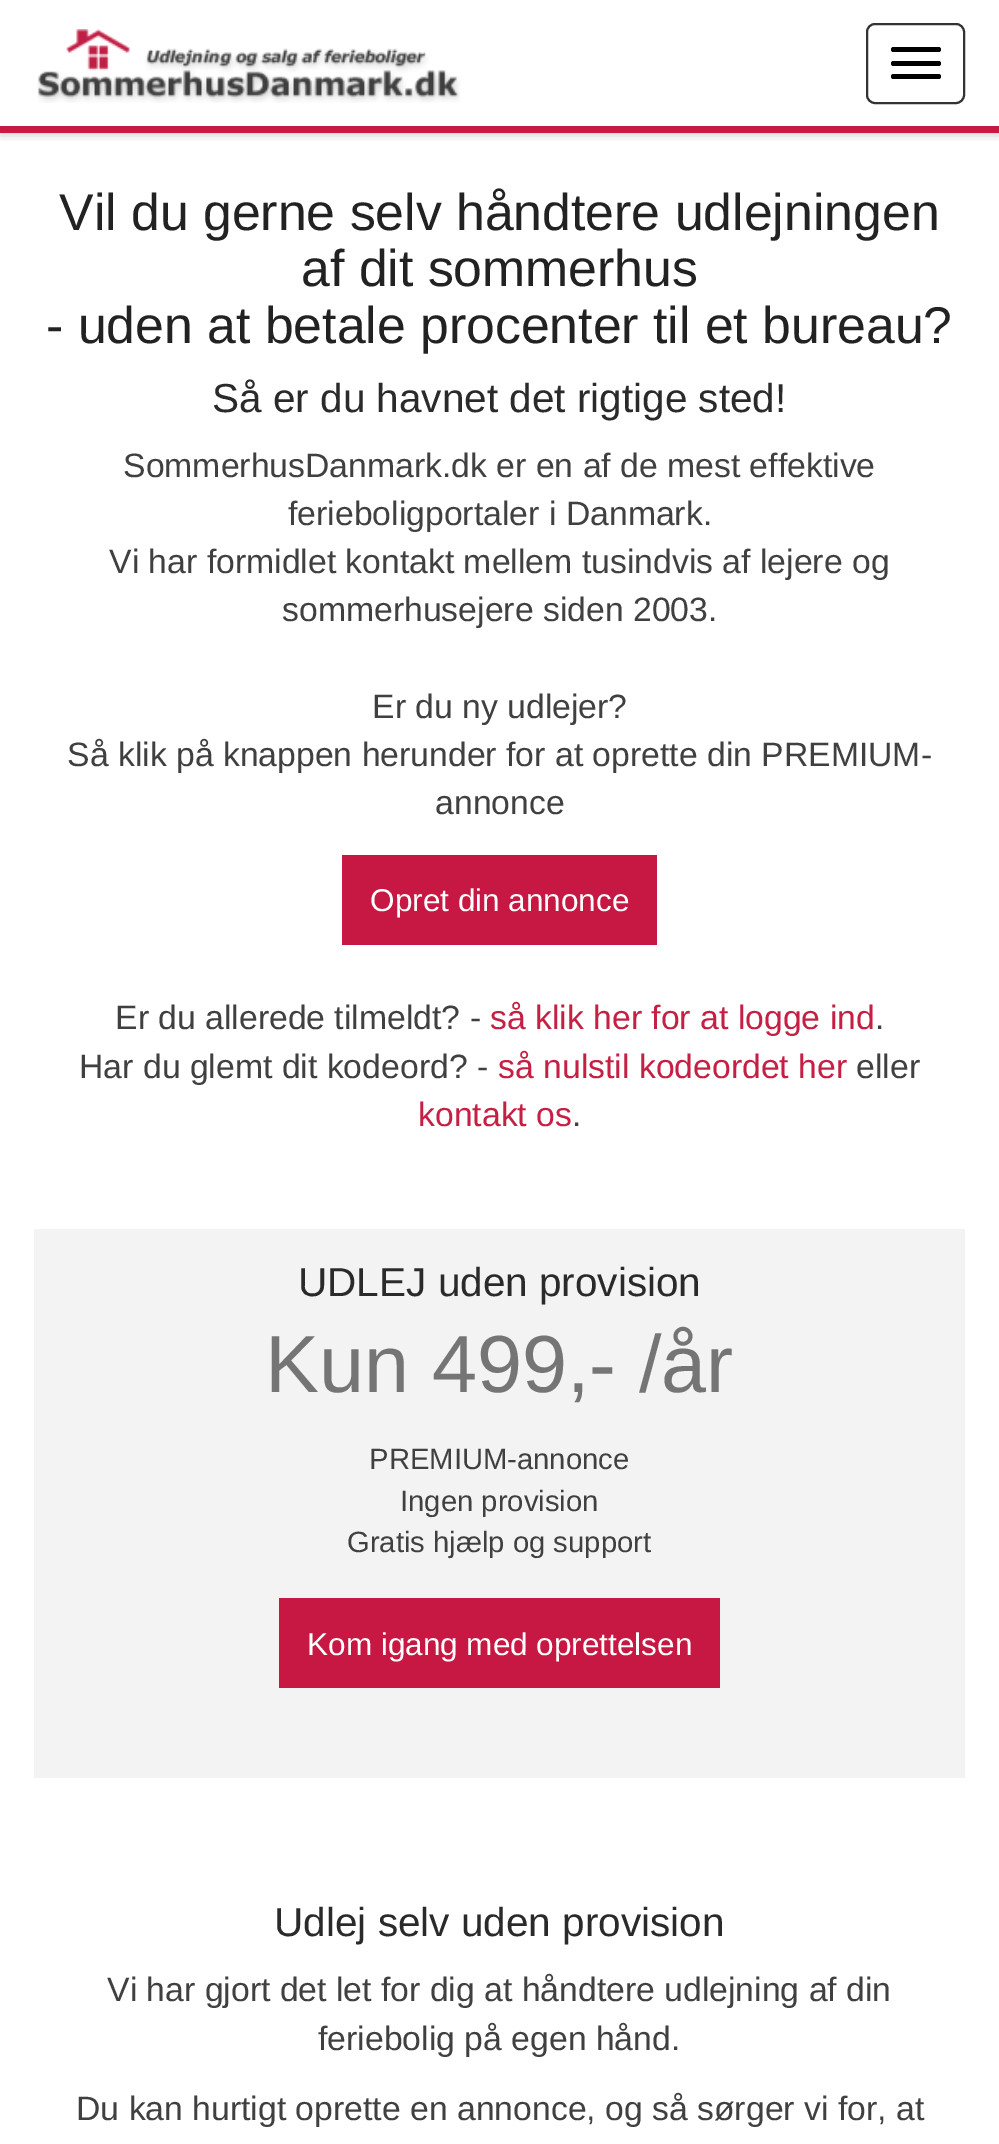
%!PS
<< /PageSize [999 2144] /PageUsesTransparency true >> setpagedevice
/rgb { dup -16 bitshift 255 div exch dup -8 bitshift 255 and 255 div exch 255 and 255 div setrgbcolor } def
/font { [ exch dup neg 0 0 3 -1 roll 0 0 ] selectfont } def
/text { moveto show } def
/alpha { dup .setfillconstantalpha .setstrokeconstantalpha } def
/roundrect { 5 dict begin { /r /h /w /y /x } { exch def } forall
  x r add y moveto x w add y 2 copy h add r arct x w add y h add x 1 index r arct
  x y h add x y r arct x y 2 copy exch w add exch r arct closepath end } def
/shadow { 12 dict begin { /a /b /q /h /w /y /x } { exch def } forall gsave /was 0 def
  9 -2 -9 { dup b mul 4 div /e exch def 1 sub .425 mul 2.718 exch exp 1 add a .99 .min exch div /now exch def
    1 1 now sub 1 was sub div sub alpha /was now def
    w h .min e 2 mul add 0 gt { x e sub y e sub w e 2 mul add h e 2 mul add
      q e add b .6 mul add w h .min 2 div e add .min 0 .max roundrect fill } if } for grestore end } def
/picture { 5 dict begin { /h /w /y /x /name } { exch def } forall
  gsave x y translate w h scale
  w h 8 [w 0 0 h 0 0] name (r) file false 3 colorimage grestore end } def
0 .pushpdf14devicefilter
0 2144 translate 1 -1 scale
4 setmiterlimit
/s1 { /LiberationSans-Regular 51.75 font 16#222222 rgb } def
/s2 { /LiberationSans-Regular 40.5 font 16#2A2A2A rgb } def
/s3 { /LiberationSans-Regular 33.75 font 16#404040 rgb } def
/s4 { /LiberationSans-Regular 31.5 font 16#FFFFFF rgb } def
/s5 { /LiberationSans-Regular 33.75 font 16#C51F44 rgb } def
/s6 { /LiberationSans-Regular 81 font 16#757575 rgb } def
/s7 { /LiberationSans-Regular 29.25 font 16#404040 rgb } def
16#FFFFFF rgb
0 0 999 2144 rectfill
gsave
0 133 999 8 rectclip
16#010101 rgb
0 0 999 133 0 5.5 0.3 shadow
grestore
16#C61A43 rgb
0 126 999 7 rectfill
(pic1.raw) 37 29 424 74 picture
16#333333 rgb
2 setlinewidth
867 24 97 79 8 roundrect stroke
16#000000 rgb
891 47 50 5 2.5 roundrect fill
891 61 50 5 2.5 roundrect fill
891 74 50 5 2.5 roundrect fill
s1
(Vil du gerne selv håndtere udlejningen) 59 230 text
(af dit sommerhus) 301 286 text
(- uden at betale procenter til et bureau?) 46 343 text
s2
(Så er du havnet det rigtige sted!) 212 412 text
s3
(SommerhusDanmark.dk er en af de mest effektive) 123 477 text
(ferieboligportaler i Danmark.) 288 525 text
(Vi har formidlet kontakt mellem tusindvis af lejere og) 109 573 text
(sommerhusejere siden 2003.) 282 621 text
(Er du ny udlejer?) 372 718 text
(Så klik på knappen herunder for at oprette din PREMIUM-) 67 766 text
(annonce) 435 814 text
16#C61842 rgb
342 855 315 90 rectfill
s4
(Opret din annonce) 370 911 text
s3
(Er du allerede tilmeldt? -) 115 1029 text
s5
(så klik her for at logge ind) 490 1029 text
s3
(.) 875 1029 text
(Har du glemt dit kodeord? -) 79 1078 text
s5
(så nulstil kodeordet her) 498 1078 text
s3
(eller) 856 1078 text
s5
(kontakt os) 418 1126 text
s3
(.) 572 1126 text
16#F3F3F3 rgb
34 1229 931 549 rectfill
s2
(UDLEJ uden provision) 298 1296 text
s6
(Kun 499,- /år) 265 1392 text
s7
(PREMIUM-annonce) 369 1469 text
(Ingen provision) 400 1511 text
(Gratis hjælp og support) 347 1552 text
16#C61842 rgb
279 1598 441 90 rectfill
s4
(Kom igang med oprettelsen) 307 1655 text
s2
(Udlej selv uden provision) 274 1936 text
s3
(Vi har gjort det let for dig at håndtere udlejning af din) 107 2001 text
(feriebolig på egen hånd.) 318 2050 text
(Du kan hurtigt oprette en annonce, og så sørger vi for, at) 76 2120 text
.poppdf14devicefilter showpage
